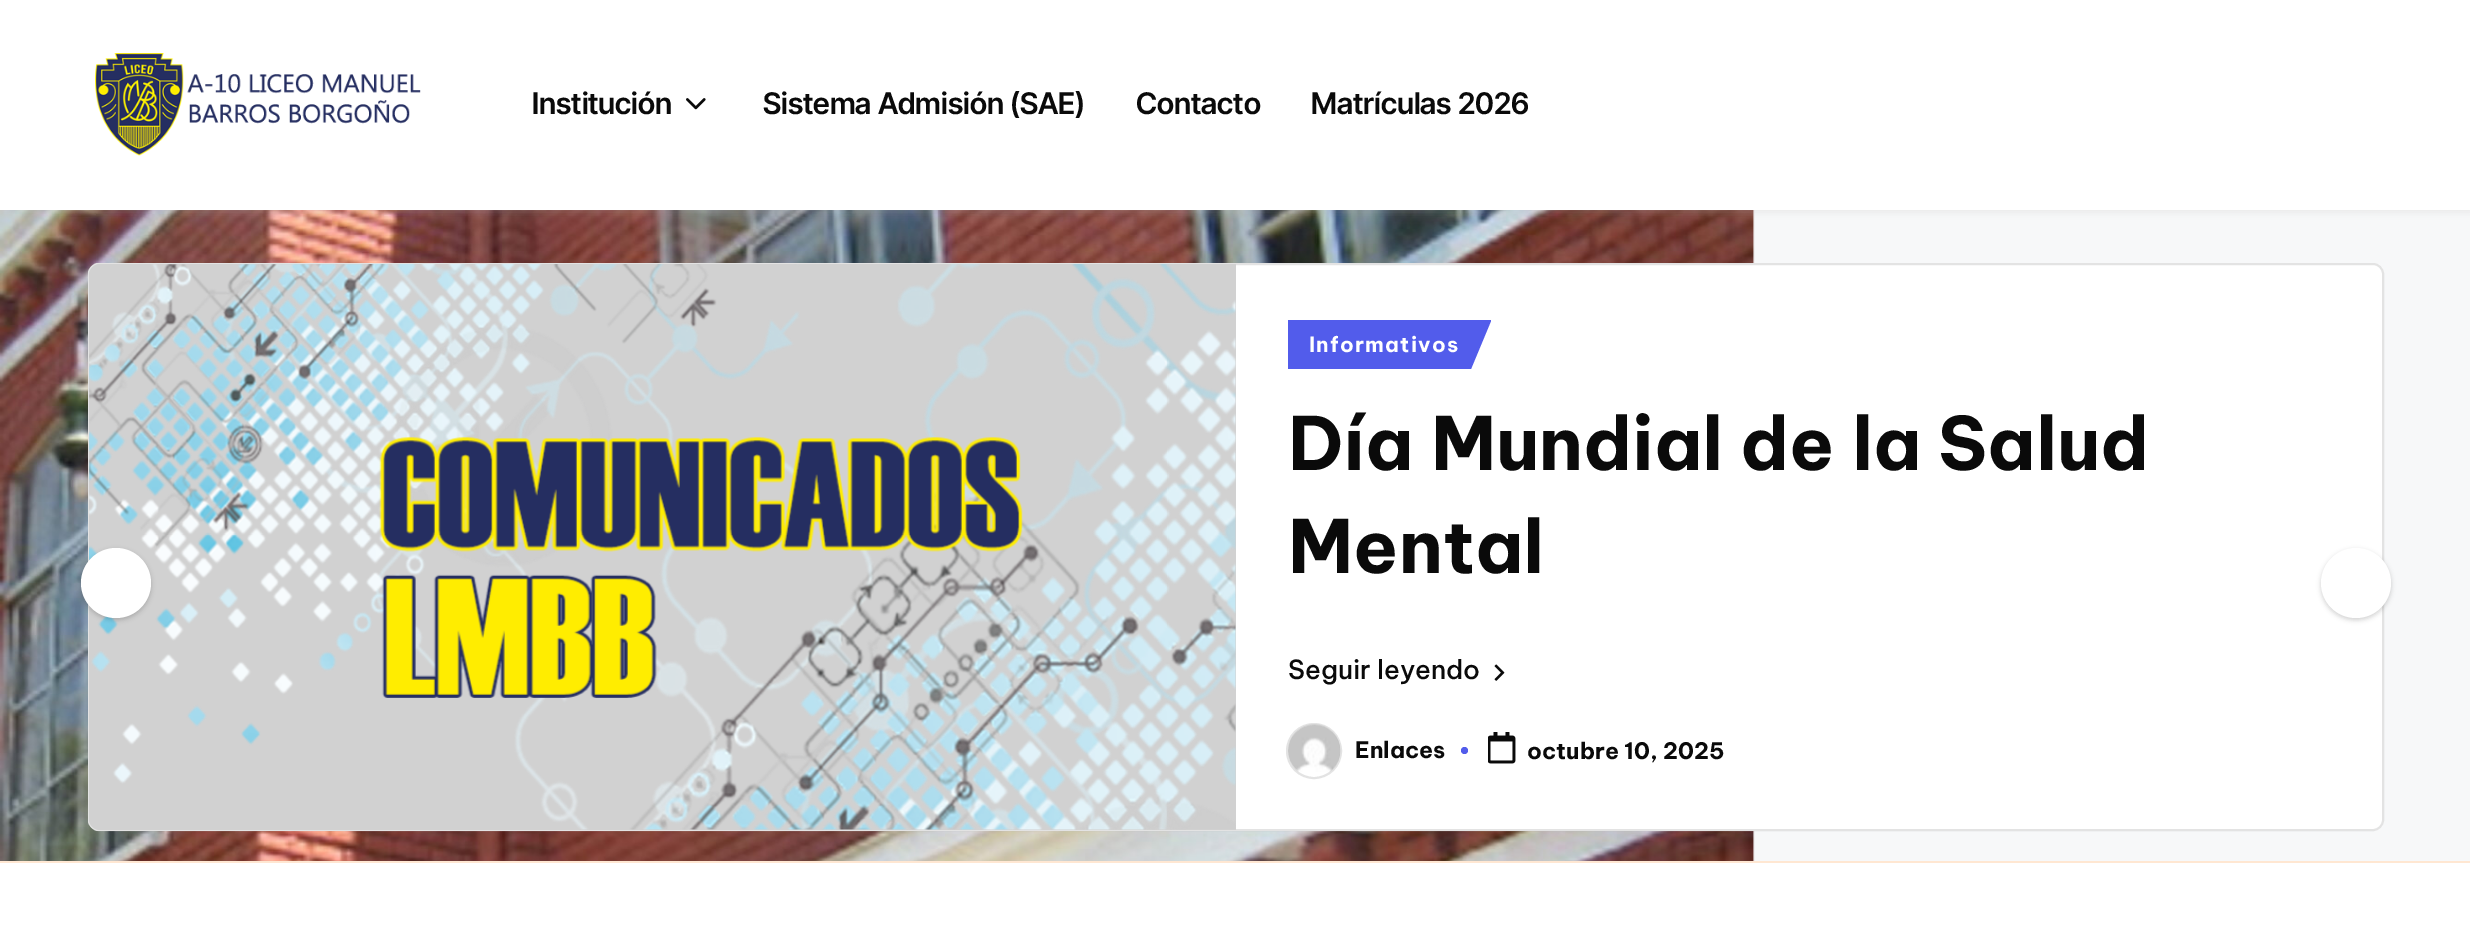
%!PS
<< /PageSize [2470 928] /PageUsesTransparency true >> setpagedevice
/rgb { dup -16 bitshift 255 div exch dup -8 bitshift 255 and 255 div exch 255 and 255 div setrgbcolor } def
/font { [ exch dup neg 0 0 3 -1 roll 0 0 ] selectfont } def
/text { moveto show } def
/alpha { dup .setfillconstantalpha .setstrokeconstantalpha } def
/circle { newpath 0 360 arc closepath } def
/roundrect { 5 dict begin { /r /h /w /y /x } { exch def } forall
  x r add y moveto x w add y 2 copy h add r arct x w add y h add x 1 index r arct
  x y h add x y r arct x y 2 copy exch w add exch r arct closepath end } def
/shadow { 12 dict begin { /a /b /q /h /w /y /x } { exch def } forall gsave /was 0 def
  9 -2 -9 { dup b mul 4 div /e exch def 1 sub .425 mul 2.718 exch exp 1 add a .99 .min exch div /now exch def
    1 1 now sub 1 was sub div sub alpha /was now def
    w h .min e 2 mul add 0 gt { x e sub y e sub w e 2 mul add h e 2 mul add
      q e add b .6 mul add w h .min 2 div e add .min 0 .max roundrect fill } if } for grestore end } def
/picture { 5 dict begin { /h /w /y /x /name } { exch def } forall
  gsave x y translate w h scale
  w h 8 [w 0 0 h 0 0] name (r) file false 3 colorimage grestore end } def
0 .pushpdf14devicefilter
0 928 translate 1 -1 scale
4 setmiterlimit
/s1 { /InterTight-SemiBold 29.75 font 16#0A0A0A rgb } def
/s2 { /BeVietnamPro-Bold 73.5 font 16#0A0A0A rgb } def
/s3 { /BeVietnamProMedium-Medium 26.25 font 16#0A0A0A rgb } def
/s4 { /BeVietnamPro-Bold 22.75 font 16#0A0A0A rgb } def
16#F7F8F9 rgb
0 0 2470 928 rectfill
(pic1.raw) 0 210 1755 651 picture
16#BEBEBE rgb
0 2 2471 210 0 5 0.3 shadow
16#FFFFFF rgb
0 0 2470 210 rectfill
(pic2.raw) 95 53 326 103 picture
s1
(Institución) 532 114 text
(pic3.raw) 686 98 20 12 picture
(Sistema Admisión \(SAE\)) 763 114 text
(Contacto) 1136 114 text
(Matrículas 2026) 1311 114 text
16#FFFFFF rgb
88 263 2296 568 11 roundrect fill
0.4 alpha
16#B9B9B9 rgb
2 setlinewidth
89 264 2294 566 10 roundrect stroke
1 alpha
16#D1D1D1 rgb
100 264 moveto 1236 264 lineto 1236 830 lineto 100 830 lineto 94 830 89 825 89 819 curveto 89 275 lineto 89 269 94 264 100 264 curveto closepath fill
(pic4.raw) 89 264 1147 566 picture
16#000000 rgb
81 550 70 70 35 2.5 0.18 shadow
16#FFFFFF rgb
116 583 35 circle fill
16#525CEB rgb
1288 320 moveto 1288 369 lineto 1471 369 lineto 1491 321 lineto 1491 320 lineto closepath fill
/BeVietnamPro-Bold 21 font
16#FFFFFF rgb
1309 352 moveto 1.25 0 (Informativos) ashow
s2
(Día Mundial de la Salud) 1288 470 text
(Mental) 1288 573 text
s3
(Seguir leyendo) 1288 679 text
(pic5.raw) 1494 664 11 17 picture
(pic6.raw) 1288 724 53 48 picture
0.4 alpha
16#B9B9B9 rgb
1314 751 27 circle stroke
1 alpha
s4
(Enlaces) 1355 758 text
16#525CEB rgb
1464.5 750.5 3.5 circle fill
(pic7.raw) 1488 732 28 32 picture
s4
(octubre 10, 2025) 1527 759 text
16#000000 rgb
2321 550 70 70 35 2.5 0.18 shadow
16#FFFFFF rgb
2356 583 35 circle fill
0 863 2470 65 rectfill
16#FFE7D2 rgb
0 861 2470 2 rectfill
.poppdf14devicefilter showpage
